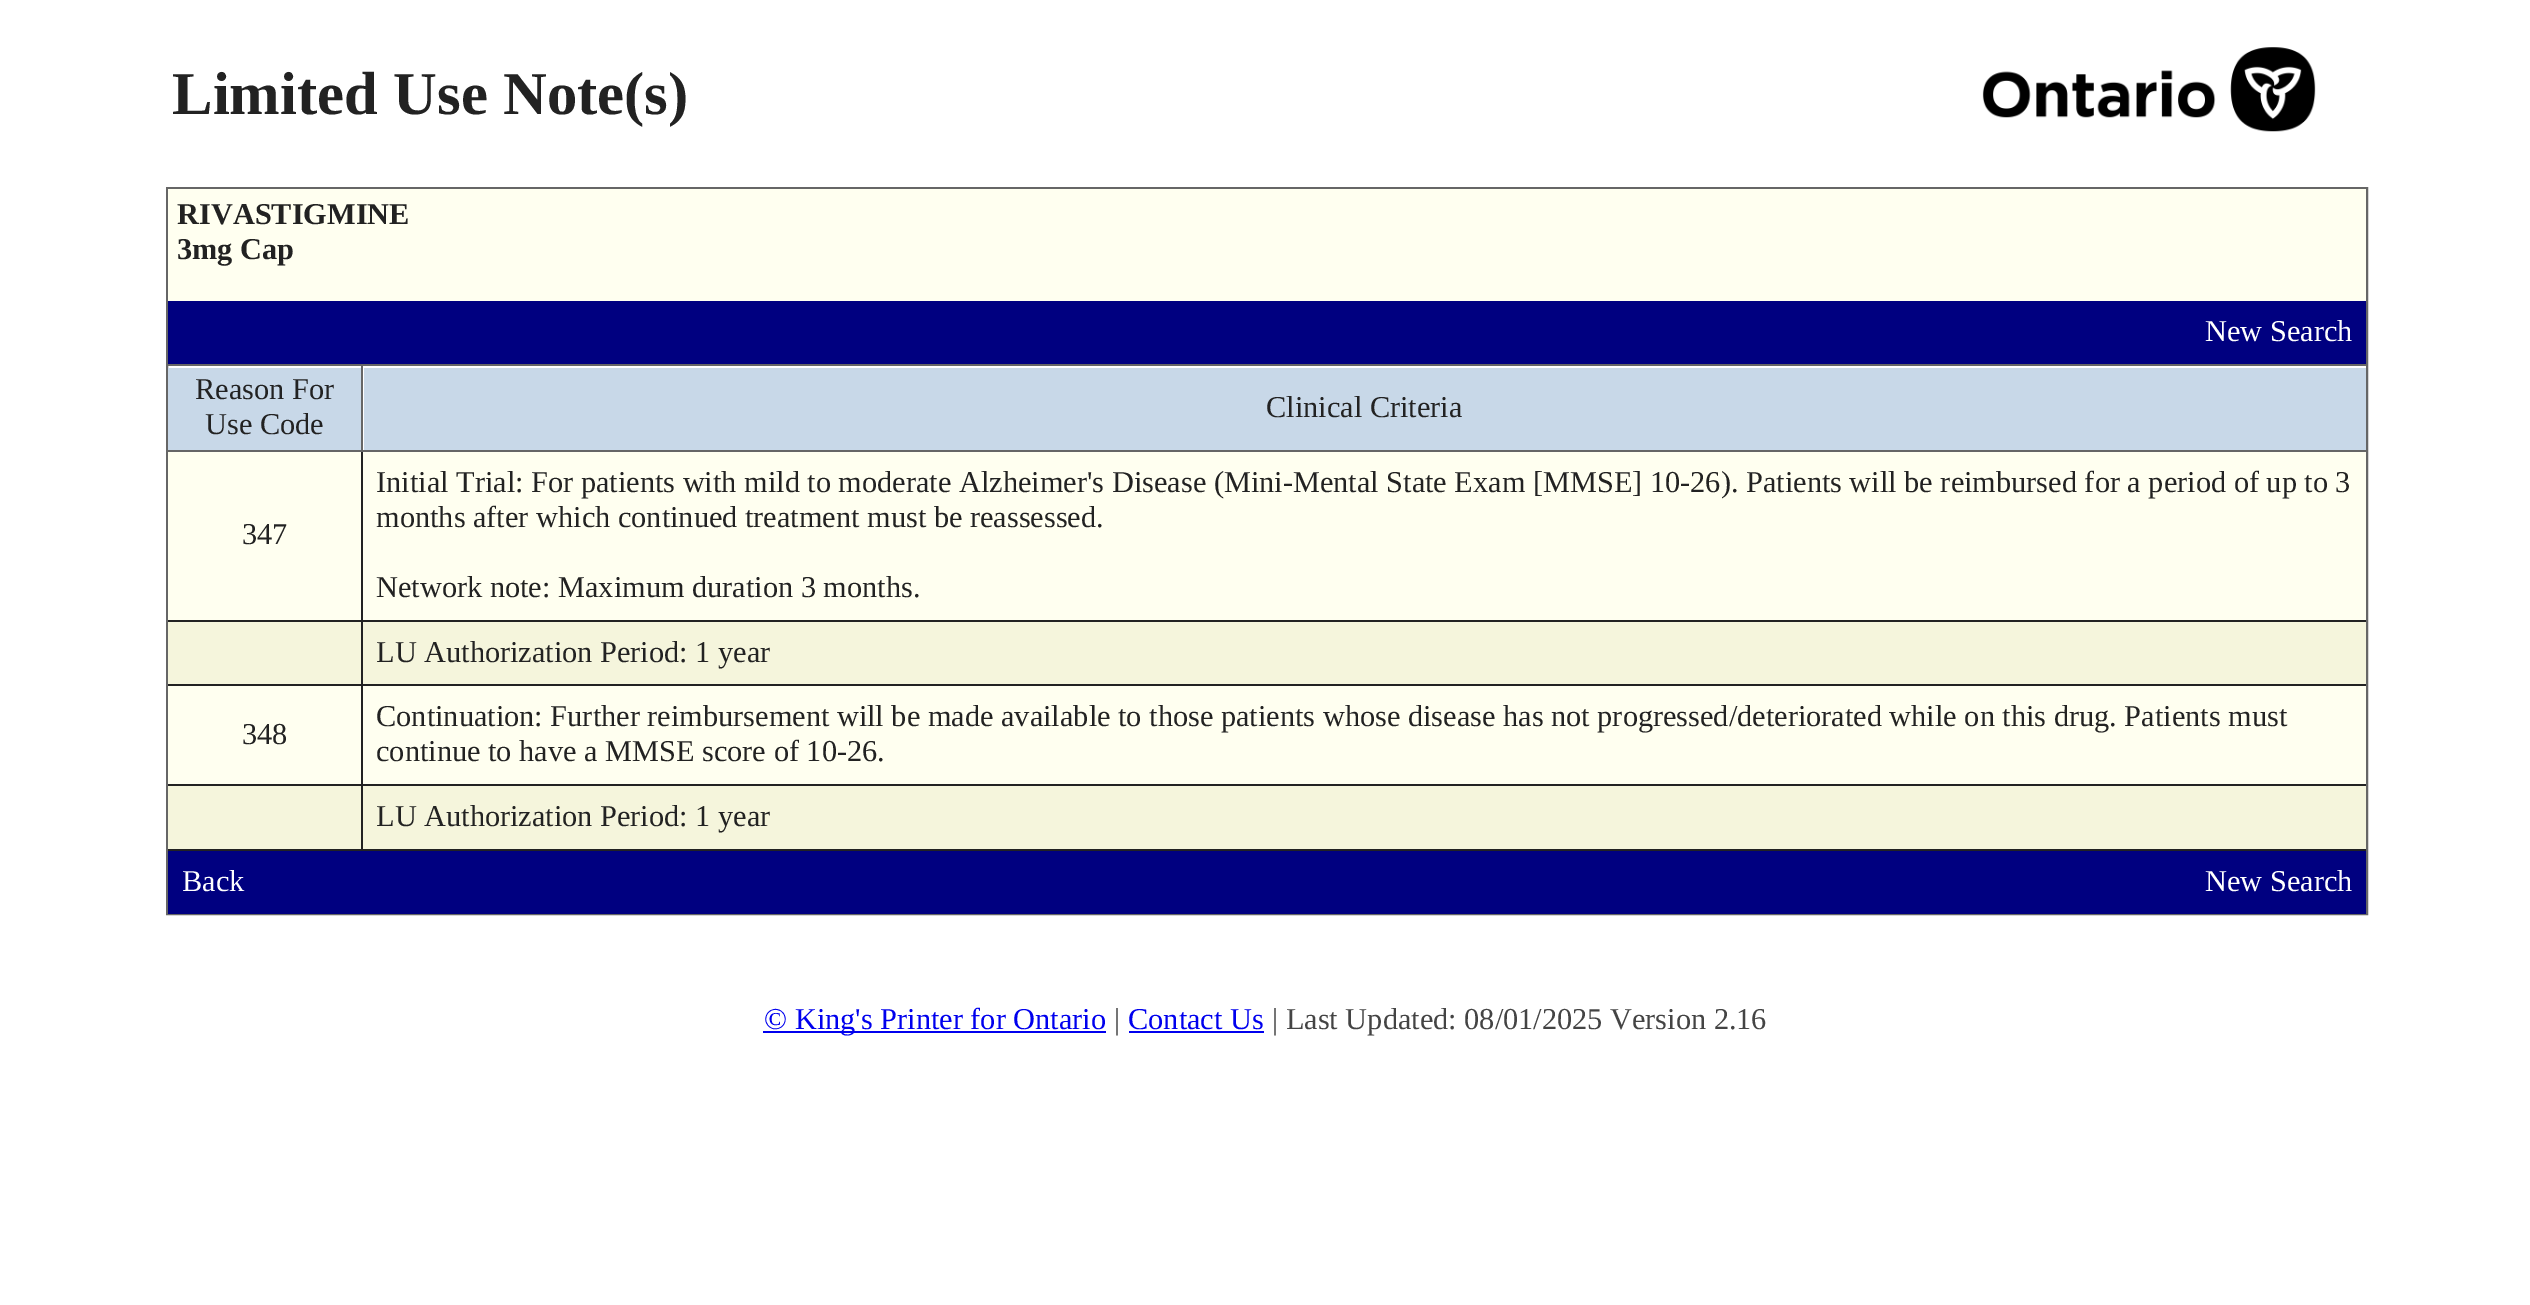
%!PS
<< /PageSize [2530 1305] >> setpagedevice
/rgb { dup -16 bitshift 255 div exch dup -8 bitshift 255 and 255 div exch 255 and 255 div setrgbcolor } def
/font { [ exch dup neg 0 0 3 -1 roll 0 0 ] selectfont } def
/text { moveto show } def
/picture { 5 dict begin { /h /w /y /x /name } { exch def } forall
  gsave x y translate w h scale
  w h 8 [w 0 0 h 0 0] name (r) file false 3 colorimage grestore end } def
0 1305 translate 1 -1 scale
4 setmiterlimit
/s1 { /LiberationSerif-Bold 60.75 font 16#222222 rgb } def
/s2 { /LiberationSerif-Bold 30.33 font 16#222222 rgb } def
/s3 { /LiberationSerif-Regular 30.33 font 16#FFFFFF rgb } def
/s4 { /LiberationSerif-Regular 30.33 font 16#222222 rgb } def
/s5 { /LiberationSerif-Regular 30.33 font 16#0000EE rgb } def
/s6 { /LiberationSerif-Regular 30.33 font 16#444444 rgb } def
16#FFFFFF rgb
0 0 2530 1305 rectfill
s1
(Limited Use Note\(s\)) 172 114 text
(pic1.raw) 1982 47 334 85 picture
16#666666 rgb
2 setlinewidth
167 188 2200 726 rectstroke
16#FFFFF0 rgb
168 189 2198 112 rectfill
s2
(RIVASTIGMINE) 177 224 text
(3mg Cap) 177 259 text
16#000080 rgb
168 301 2198 63 rectfill
s3
(New Search) 2205 341 text
16#666666 rgb
361 364 2005 2 rectfill
16#FFFFF0 rgb
168 452 2198 168 rectfill
16#222222 rgb
361 620 2005 2 rectfill
16#F5F5DC rgb
168 622 2198 62 rectfill
16#222222 rgb
361 684 2005 2 rectfill
16#FFFFF0 rgb
168 686 2198 98 rectfill
16#222222 rgb
361 784 2005 2 rectfill
16#F5F5DC rgb
168 786 2198 63 rectfill
16#222222 rgb
361 849 2005 2 rectfill
361 784 2 67 rectfill
168 784 194 2 rectfill
361 684 2 102 rectfill
168 684 194 2 rectfill
361 620 2 66 rectfill
168 620 194 2 rectfill
361 450 2 171 rectfill
16#666666 rgb
361 450 2005 2 rectfill
361 364 2 88 rectfill
168 364 194 2 rectfill
168 450 194 2 rectfill
16#C8D8E8 rgb
168 368 193 82 rectfill
s4
(Reason For) 195 399 text
(Use Code) 205 434 text
16#C8D8E8 rgb
364 368 2002 82 rectfill
s4
(Clinical Criteria) 1266 417 text
(347) 242 544 text
(Initial Trial: For patients with mild to moderate Alzheimer's Disease \(Mini-Mental State Exam [MMSE] 10-26\). Patients will be reimbursed for a period of up to 3) 376 492 text
(months after which continued treatment must be reassessed.) 376 527 text
(Network note: Maximum duration 3 months.) 376 597 text
(LU Authorization Period: 1 year) 376 662 text
(348) 242 744 text
(Continuation: Further reimbursement will be made available to those patients whose disease has not progressed/deteriorated while on this drug. Patients must) 376 726 text
(continue to have a MMSE score of 10-26.) 376 761 text
168 849 194 2 rectfill
(LU Authorization Period: 1 year) 376 826 text
16#000080 rgb
168 851 2198 63 rectfill
s3
(Back) 182 891 text
(New Search) 2205 891 text
16#0000EE rgb
763 1031 343 2 rectfill
(© King's Printer for Ontario) 764 1029 text
s6
(|) 1114 1029 text
s5
(Contact Us) 1128 1029 text
1129 1031 135 2 rectfill
s6
(| Last Updated: 08/01/2025 Version 2.16) 1272 1029 text
showpage
